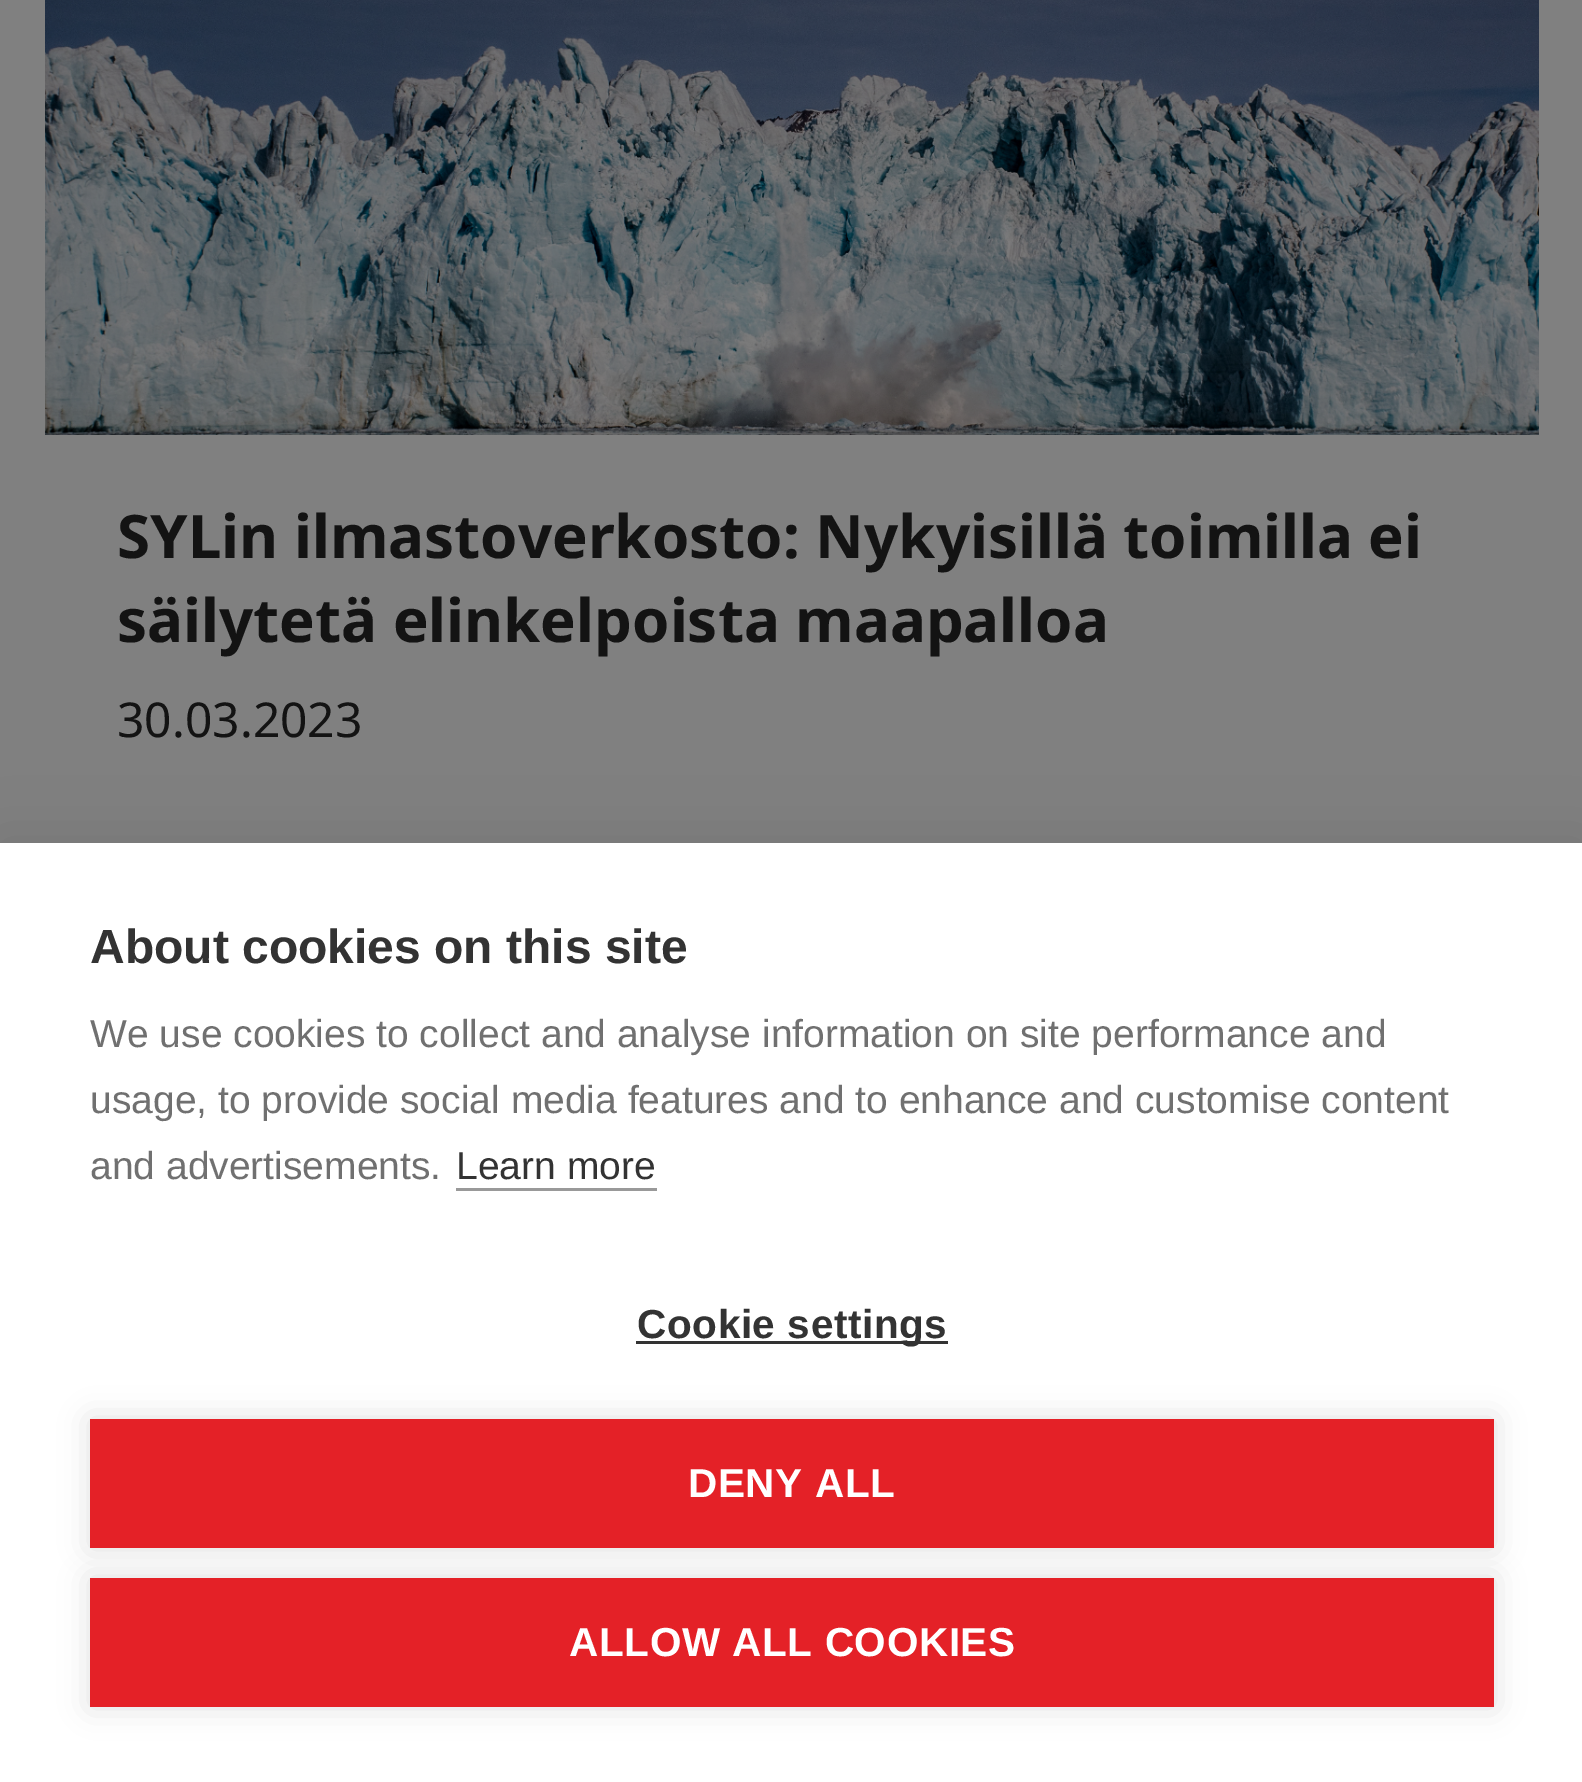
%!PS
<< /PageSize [1582 1782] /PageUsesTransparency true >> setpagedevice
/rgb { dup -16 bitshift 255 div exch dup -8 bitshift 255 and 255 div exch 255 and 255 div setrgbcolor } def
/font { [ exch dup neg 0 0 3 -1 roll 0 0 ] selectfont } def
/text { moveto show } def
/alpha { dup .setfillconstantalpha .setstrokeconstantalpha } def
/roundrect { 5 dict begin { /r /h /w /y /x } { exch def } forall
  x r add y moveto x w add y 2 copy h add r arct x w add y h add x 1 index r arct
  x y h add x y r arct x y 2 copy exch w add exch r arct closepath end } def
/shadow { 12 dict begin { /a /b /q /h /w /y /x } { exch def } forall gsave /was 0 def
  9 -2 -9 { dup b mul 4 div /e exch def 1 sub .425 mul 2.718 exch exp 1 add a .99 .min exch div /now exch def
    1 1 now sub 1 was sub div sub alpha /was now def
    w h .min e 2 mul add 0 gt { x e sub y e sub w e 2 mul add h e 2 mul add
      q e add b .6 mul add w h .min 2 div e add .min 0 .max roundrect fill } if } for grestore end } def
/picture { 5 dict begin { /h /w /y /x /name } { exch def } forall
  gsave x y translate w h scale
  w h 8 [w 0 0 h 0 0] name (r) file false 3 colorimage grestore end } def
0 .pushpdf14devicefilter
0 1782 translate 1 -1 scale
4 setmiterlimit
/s1 { /NotoSans-Bold 60 font 16#131313 rgb } def
/s2 { /NotoSans-Regular 48 font 16#131313 rgb } def
/s3 { /LiberationSans-Bold 48 font 16#333333 rgb } def
/s4 { /LiberationSans-Regular 39 font 16#707070 rgb } def
/s5 { /LiberationSans-Regular 39 font 16#333333 rgb } def
16#808080 rgb
0 0 1582 1782 rectfill
(pic1.raw) 45 0 1494 435 picture
s1
(SYLin ilmastoverkosto: Nykyisillä toimilla ei) 117 558 text
(säilytetä elinkelpoista maapalloa) 117 642 text
s2
(30.03.2023) 117 737 text
16#000000 rgb
0 843 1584 939 0 30 0.1 shadow
16#FFFFFF rgb
0 843 1582 939 rectfill
s3
(About cookies on this site) 90 963 text
s4
(We use cookies to collect and analyse information on site performance and) 90 1047 text
(usage, to provide social media features and to enhance and customise content) 90 1113 text
(and advertisements.) 90 1179 text
s5
(Learn more) 456 1179 text
16#999999 rgb
456 1188 201 3 rectfill
16#333333 rgb
636 1341 312 3 rectfill
/LiberationSans-Bold 40.5 font
637 1338 moveto 0.6 0 (Cookie settings) ashow
16#000000 rgb
90 1419 1404 129 0 15 0.12 shadow
16#E42127 rgb
90 1419 1404 129 rectfill
16#FFFFFF rgb
688 1497 moveto 0.6 0 (DENY ALL) ashow
16#000000 rgb
90 1578 1404 129 0 15 0.12 shadow
16#E42127 rgb
90 1578 1404 129 rectfill
16#FFFFFF rgb
569 1656 moveto 0.6 0 (ALLOW ALL COOKIES) ashow
.poppdf14devicefilter showpage
